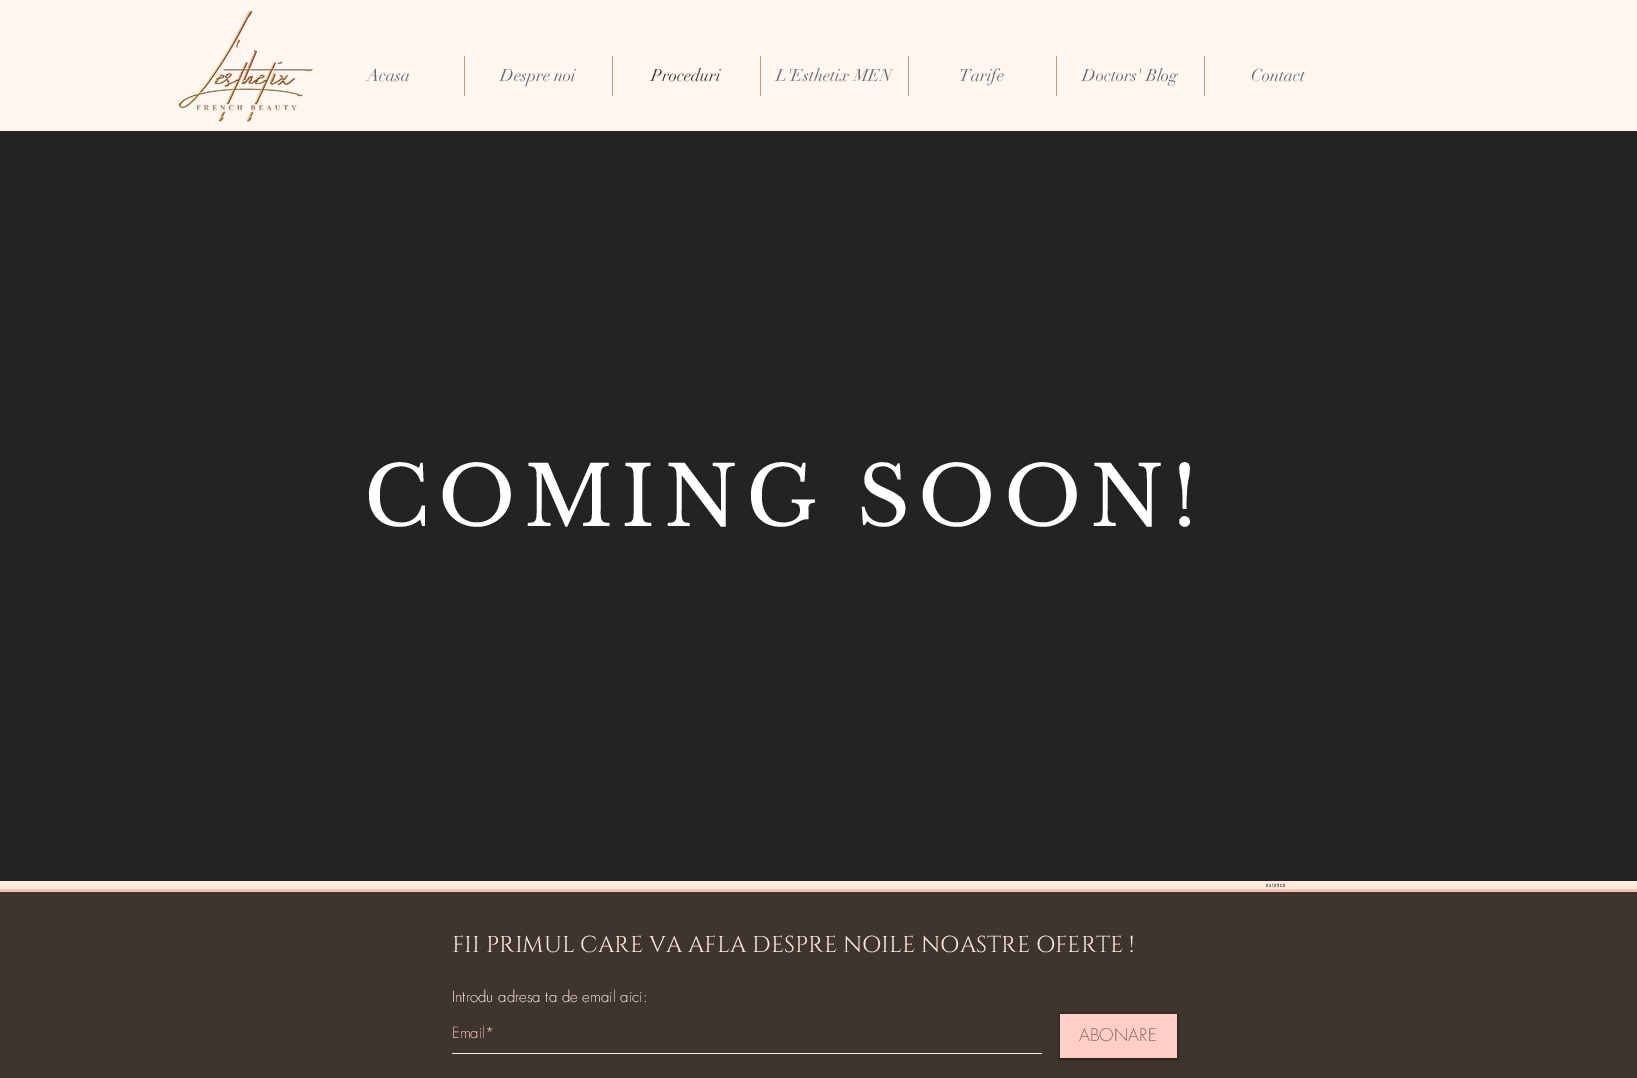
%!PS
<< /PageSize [1637 1078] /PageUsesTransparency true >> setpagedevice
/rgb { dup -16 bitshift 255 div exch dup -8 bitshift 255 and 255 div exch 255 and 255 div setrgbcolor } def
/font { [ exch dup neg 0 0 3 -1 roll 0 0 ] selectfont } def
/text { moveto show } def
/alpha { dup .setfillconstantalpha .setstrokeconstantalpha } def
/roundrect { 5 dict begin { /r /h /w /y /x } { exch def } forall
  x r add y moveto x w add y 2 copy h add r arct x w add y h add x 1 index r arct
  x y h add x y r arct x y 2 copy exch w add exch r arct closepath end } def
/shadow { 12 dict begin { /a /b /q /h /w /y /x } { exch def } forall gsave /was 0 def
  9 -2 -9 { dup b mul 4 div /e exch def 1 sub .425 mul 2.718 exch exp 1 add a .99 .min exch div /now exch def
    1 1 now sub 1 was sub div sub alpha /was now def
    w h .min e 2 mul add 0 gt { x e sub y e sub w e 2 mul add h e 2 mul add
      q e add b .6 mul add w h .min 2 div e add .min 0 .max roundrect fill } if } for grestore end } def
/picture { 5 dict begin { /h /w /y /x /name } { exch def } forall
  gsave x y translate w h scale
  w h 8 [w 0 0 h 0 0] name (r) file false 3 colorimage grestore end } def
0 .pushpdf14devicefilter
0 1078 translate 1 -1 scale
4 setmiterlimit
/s1 { /didot-Regular 17 font 16#696969 rgb } def
/s2 { /didot-Regular 17 font 16#3F352F rgb } def
/s3 { /Cinzel-Regular 23 font 16#FCEADD rgb } def
/s4 { /futura-Light 15 font 16#FCEADD rgb } def
/s5 { /futura-Light 15 font 16#FCBCB2 rgb } def
/s6 { /futura-Light 17 font 16#7D6B5E rgb } def
16#FCEADD rgb
0 0 1637 1078 rectfill
16#FEF6F1 rgb
0 0 1637 131 rectfill
(pic1.raw) 178 10 158 112 picture
s1
(Acasa) 367 81 text
16#BCA08C rgb
464 56 1 40 rectfill
s1
(Despre noi) 500 81 text
16#BCA08C rgb
612 56 1 40 rectfill
s2
(Proceduri) 651 81 text
16#BCA08C rgb
760 56 1 40 rectfill
s1
(L'Esthetix MEN) 776 81 text
16#BCA08C rgb
908 56 1 40 rectfill
s1
(Tarife) 959 81 text
16#BCA08C rgb
1056 56 1 40 rectfill
s1
(Doctors' Blog) 1082 81 text
16#BCA08C rgb
1204 56 1 40 rectfill
s1
(Contact) 1251 81 text
16#242323 rgb
0 131 1637 750 rectfill
/LibreBaskerville-Regular 82 font
16#FFFFFF rgb
364 526 moveto 8.25 0 (COMING SOON!) ashow
/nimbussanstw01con-Regular 6 font
16#292929 rgb
1266 887 moveto 0.5 0 (estetice) ashow
16#3F352F rgb
0 892 1637 186 rectfill
16#FCBCB2 rgb
0 889 1637 3 rectfill
s3
(FII PRIMUL CARE VA AFLA DESPRE NOILE NOASTRE OFERTE !) 452 952 text
s4
(Introdu adresa ta de email aici:) 452 1002 text
452 1053 590 1 rectfill
s5
(Email*) 452 1038 text
16#000000 rgb
1060 1015 117 44 0 2 0.6 shadow
16#FFCEC7 rgb
1060 1014 117 44 rectfill
s6
(ABONARE) 1079 1041 text
.poppdf14devicefilter showpage
